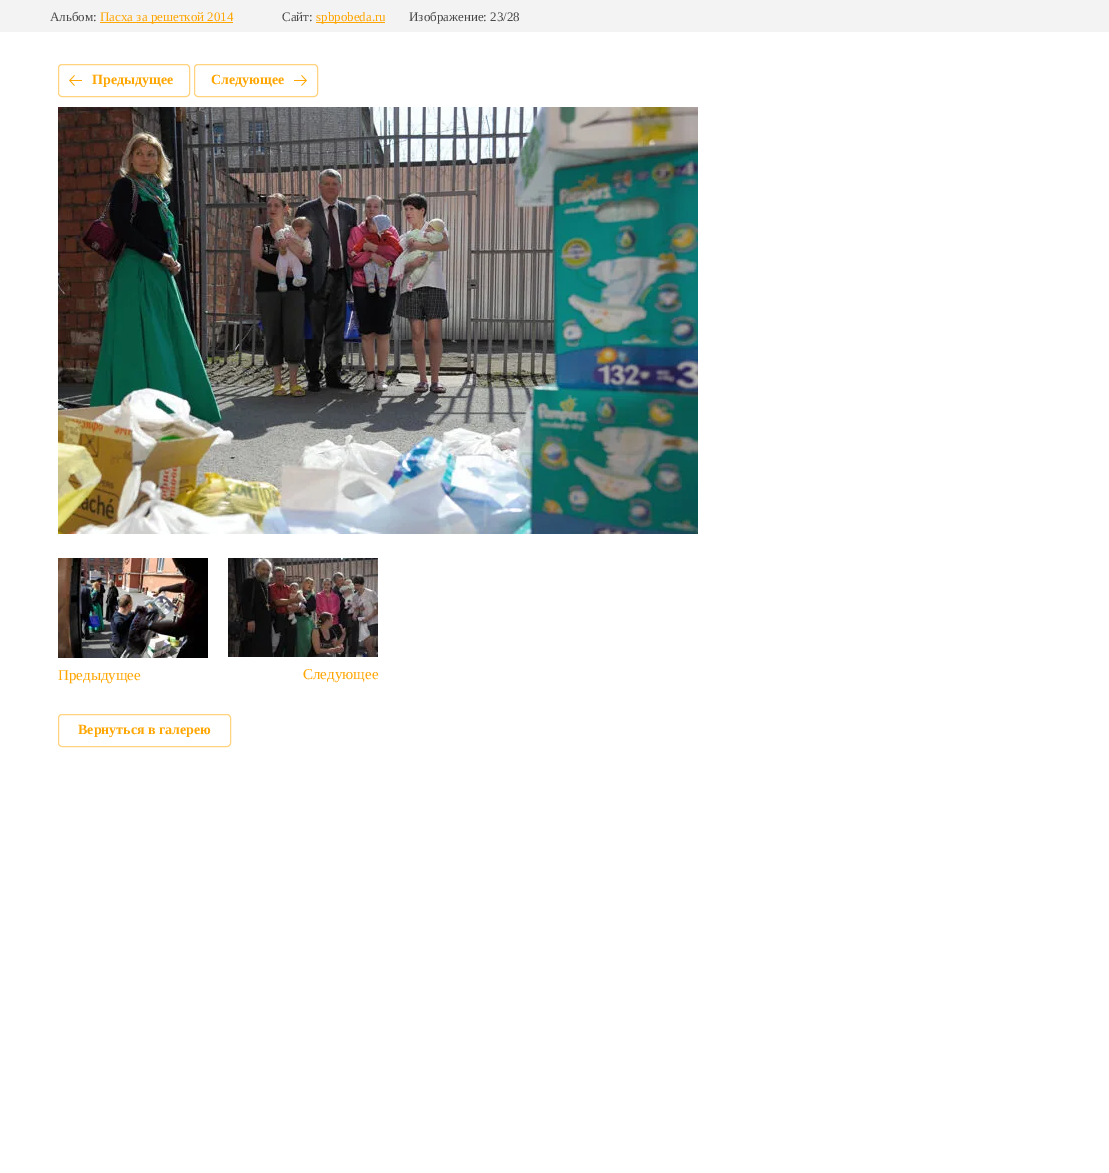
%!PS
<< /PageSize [1109 1173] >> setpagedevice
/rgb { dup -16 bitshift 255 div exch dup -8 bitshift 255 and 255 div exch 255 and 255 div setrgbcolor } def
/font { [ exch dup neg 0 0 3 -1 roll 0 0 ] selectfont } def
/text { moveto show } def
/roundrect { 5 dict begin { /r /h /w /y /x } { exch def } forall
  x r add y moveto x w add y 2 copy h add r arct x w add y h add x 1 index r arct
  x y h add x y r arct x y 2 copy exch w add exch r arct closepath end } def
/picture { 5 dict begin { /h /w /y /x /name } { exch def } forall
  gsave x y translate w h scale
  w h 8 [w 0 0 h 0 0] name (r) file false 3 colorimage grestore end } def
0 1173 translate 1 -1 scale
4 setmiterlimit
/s1 { /LiberationSerif-Regular 13 font 16#484848 rgb } def
/s2 { /LiberationSerif-Regular 13 font 16#FFA601 rgb } def
/s3 { /LiberationSerif-Bold 14 font 16#FFA601 rgb } def
/s4 { /LiberationSerif-Regular 15 font 16#FFA601 rgb } def
16#FFFFFF rgb
0 0 1109 1173 rectfill
16#F3F3F3 rgb
0 0 1109 32 rectfill
s1
(Альбом:) 50 21 text
16#FFA601 rgb
100 22 133 1 rectfill
(Пасха за решеткой 2014) 100 21 text
s1
(Сайт:) 282 21 text
16#FFA601 rgb
316 22 69 1 rectfill
(spbpobeda.ru) 316 21 text
s1
(Изображение: 23/28) 409 21 text
16#FFD380 rgb
58.5 64.5 131 32 3.5 roundrect stroke
(pic1.raw) 69 75 13 11 picture
s3
(Предыдущее) 92 84 text
16#FFD380 rgb
194.5 64.5 123 32 3.5 roundrect stroke
s3
(Следующее) 211 84 text
(pic2.raw) 294 75 13 11 picture
(pic3.raw) 58 107 640 427 picture
(pic4.raw) 58 558 150 100 picture
s4
(Предыдущее) 58 680 text
(pic5.raw) 228 558 150 99 picture
(Следующее) 303 679 text
16#FFD380 rgb
58.5 714.5 172 32 3.5 roundrect stroke
s3
(Вернуться в галерею) 78 734 text
showpage
